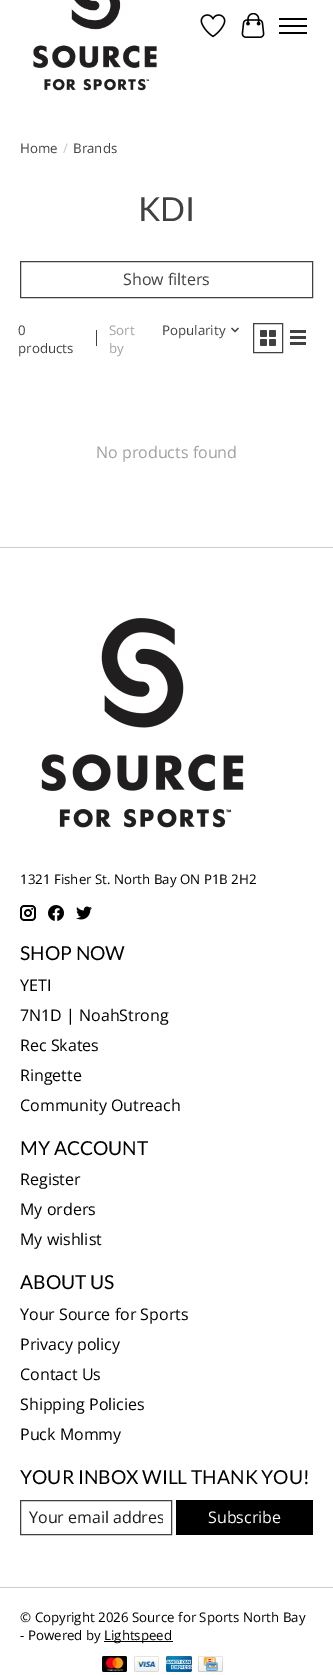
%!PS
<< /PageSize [333 1675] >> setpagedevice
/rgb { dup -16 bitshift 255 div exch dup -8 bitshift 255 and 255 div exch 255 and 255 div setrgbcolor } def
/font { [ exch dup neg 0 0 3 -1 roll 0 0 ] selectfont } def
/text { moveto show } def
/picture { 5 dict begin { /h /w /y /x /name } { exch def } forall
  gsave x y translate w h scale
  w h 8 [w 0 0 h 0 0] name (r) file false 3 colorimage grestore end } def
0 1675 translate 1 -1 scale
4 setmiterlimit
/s1 { /OpenSans-Regular 13.3 font 16#414141 rgb } def
/s2 { /OpenSans-Regular 13.3 font 16#C6C6C6 rgb } def
/s3 { /Lato-Regular 33 font 16#414141 rgb } def
/s4 { /OpenSans-Regular 16 font 16#414141 rgb } def
/s5 { /OpenSans-Regular 13.3 font 16#A0A0A0 rgb } def
/s6 { /OpenSans-Regular 16 font 16#A0A0A0 rgb } def
/s7 { /OpenSans-Regular 13.3 font 16#000000 rgb } def
/s8 { /Lato-Regular 19.25 font 16#000000 rgb } def
/s9 { /OpenSans-Regular 16 font 16#000000 rgb } def
/s10 { /OpenSans-Regular 16 font 16#1C1C21 rgb } def
/s11 { /OpenSans-Regular 16 font 16#FFFFFF rgb } def
16#FFFFFF rgb
0 0 333 1675 rectfill
(pic1.raw) 33 0 124 91 picture
(pic2.raw) 200 14 26 24 picture
(pic3.raw) 241 13 24 25 picture
16#000000 rgb
279 25 28 2 rectfill
279 18 28 2 rectfill
279 32 28 2 rectfill
s1
(Home) 20 153 text
s2
(/) 63 153 text
s1
(Brands) 73 153 text
s3
(KDI) 138 221 text
20.5 261.5 292 36 rectstroke
s4
(Show filters) 123 285 text
s1
(0) 18 335 text
(products) 18 353 text
96 330 1 16 rectfill
s5
(Sort) 109 335 text
(by) 109 353 text
s1
(Popularity) 162 335 text
(pic4.raw) 231 327 8 6 picture
253.5 323.5 29 29 rectstroke
(pic5.raw) 260 330 16 16 picture
290 330 16 3 rectfill
290 336 16 3 rectfill
290 342 16 3 rectfill
s6
(No products found) 96 458 text
16#CCCCCC rgb
0 547 333 1 rectfill
(pic6.raw) 41 618 203 210 picture
s7
(1321 Fisher St. North Bay ON P1B 2H2) 20 884 text
(pic7.raw) 20 905 16 16 picture
(pic8.raw) 48 905 16 16 picture
(pic9.raw) 76 906 16 14 picture
s8
(SHOP NOW) 20 960 text
s9
(YETI) 20 991 text
(7N1D | NoahStrong) 20 1021 text
(Rec Skates) 20 1051 text
(Ringette) 20 1081 text
(Community Outreach) 20 1111 text
s8
(MY ACCOUNT) 20 1155 text
s9
(Register) 20 1185 text
(My orders) 20 1215 text
(My wishlist) 20 1245 text
s8
(ABOUT US) 20 1289 text
s9
(Your Source for Sports) 20 1320 text
(Privacy policy) 20 1350 text
(Contact Us) 20 1380 text
(Shipping Policies) 20 1410 text
(Puck Mommy) 20 1440 text
s8
(YOUR INBOX WILL THANK YOU!) 20 1484 text
16#414141 rgb
20.5 1500.5 151 34 rectstroke
gsave
29 1506 134 22 rectclip
s10
(Your email addres) 29 1523 text
grestore
16#000000 rgb
176 1500 137 35 rectfill
s11
(Subscribe) 208 1523 text
16#CCCCCC rgb
0 1587 333 1 rectfill
s7
(© Copyright 2026 Source for Sports North Bay) 20 1622 text
(- Powered by) 20 1640 text
104 1641 69 1 rectfill
(Lightspeed) 104 1640 text
(pic10.raw) 102 1656 25 16 picture
(pic11.raw) 134 1656 25 16 picture
(pic12.raw) 166 1656 26 16 picture
(pic13.raw) 198 1656 25 16 picture
showpage
